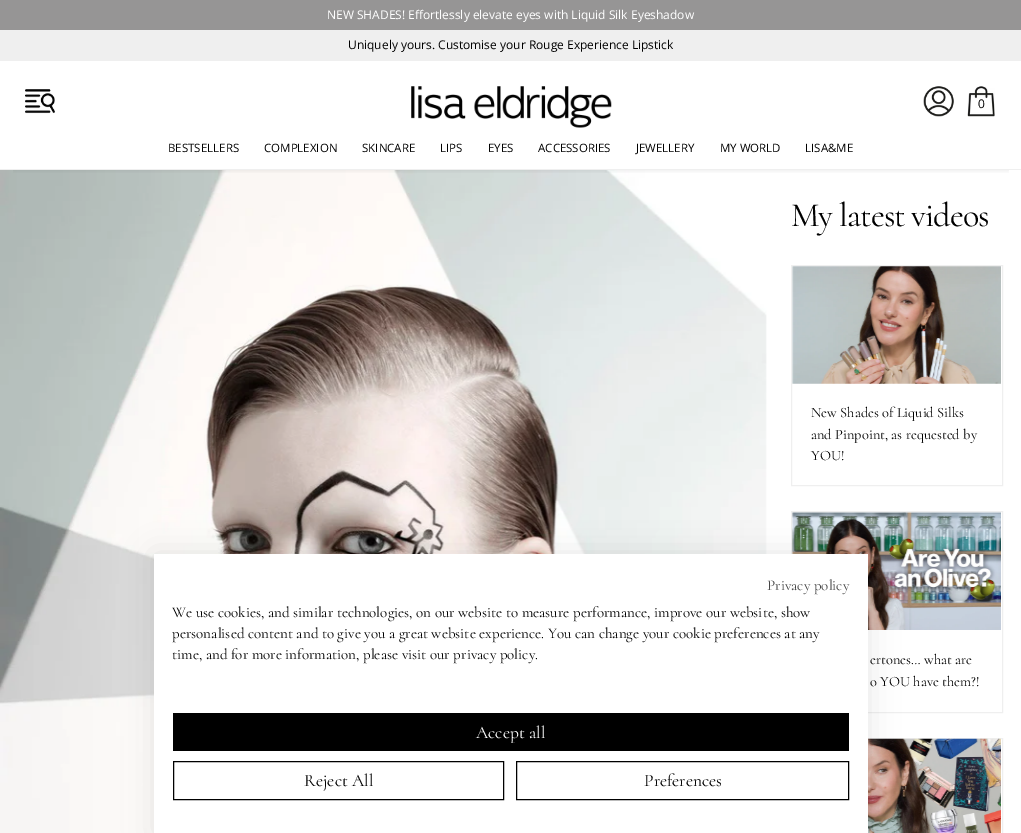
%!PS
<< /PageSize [1021 833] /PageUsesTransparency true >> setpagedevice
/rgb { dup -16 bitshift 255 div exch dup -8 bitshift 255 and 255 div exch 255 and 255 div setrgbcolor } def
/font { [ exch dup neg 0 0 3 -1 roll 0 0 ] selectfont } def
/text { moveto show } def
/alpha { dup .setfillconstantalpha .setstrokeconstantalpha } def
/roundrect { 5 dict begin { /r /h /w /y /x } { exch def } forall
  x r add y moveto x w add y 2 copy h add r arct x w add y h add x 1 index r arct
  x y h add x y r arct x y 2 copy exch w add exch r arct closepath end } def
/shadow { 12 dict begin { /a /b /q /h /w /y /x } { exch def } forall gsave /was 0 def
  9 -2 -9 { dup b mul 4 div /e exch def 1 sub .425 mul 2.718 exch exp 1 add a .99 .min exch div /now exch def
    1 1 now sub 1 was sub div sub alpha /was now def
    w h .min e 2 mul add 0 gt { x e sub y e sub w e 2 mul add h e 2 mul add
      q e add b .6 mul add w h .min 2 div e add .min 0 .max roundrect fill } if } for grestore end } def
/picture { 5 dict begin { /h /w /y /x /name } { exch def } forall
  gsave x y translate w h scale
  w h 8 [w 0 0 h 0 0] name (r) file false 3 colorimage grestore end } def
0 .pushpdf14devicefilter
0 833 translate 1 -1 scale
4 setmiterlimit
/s1 { /OpenSans-Regular 12 font 16#FFFFFF rgb } def
/s2 { /OpenSans-Regular 12 font 16#000000 rgb } def
/s3 { /OpenSans-Regular 11.5 font 16#000000 rgb } def
/s4 { /Cormorant-Regular 14.4 font 16#000000 rgb } def
/s5 { /Cormorant-Regular 15 font 16#444444 rgb } def
/s6 { /Cormorant-Regular 15 font 16#000000 rgb } def
/s7 { /Cormorant-Regular 17.5 font 16#FFFFFF rgb } def
/s8 { /Cormorant-Regular 17.5 font 16#000000 rgb } def
16#FFFFFF rgb
0 0 1021 833 rectfill
16#969595 rgb
0 0 1021 30 rectfill
s1
(NEW SHADES! Effortlessly elevate eyes with Liquid Silk Eyeshadow) 327 19 text
(pic5.raw) 0 170 767 663 picture
gsave
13 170 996 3 rectclip
16#000000 rgb
13 49 996 115 0 6 0.3 shadow
grestore
16#EFEFEF rgb
0 169 1021 1 rectfill
0 30 1021 31 rectfill
s2
(Uniquely yours. Customise your Rouge Experience Lipstick) 348 49 text
(pic1.raw) 25 89 30 25 picture
(pic2.raw) 411 86 201 42 picture
(pic3.raw) 923 86 31 31 picture
(pic4.raw) 967 86 28 31 picture
(0) 978 108 text
s3
(BESTSELLERS) 168 152 text
(COMPLEXION) 264 152 text
(SKINCARE) 362 152 text
(LIPS) 440 152 text
(EYES) 488 152 text
(ACCESSORIES) 538 152 text
(JEWELLERY) 636 152 text
(MY WORLD) 720 152 text
(LISA&ME) 805 152 text
/Cormorant-Regular 34 font
791 226 moveto -1 0 (My latest videos) ashow
16#EFEFEF rgb
791.5 265.5 211 220 rectstroke
(pic6.raw) 792 266 209 118 picture
s4
(New Shades of Liquid Silks) 811 417 text
(and Pinpoint, as requested by) 811 439 text
(YOU!) 811 460 text
16#EFEFEF rgb
791.5 511.5 211 201 rectstroke
(pic7.raw) 792 512 209 118 picture
s4
(ertones… what are) 870 664 text
(o YOU have them?!) 870 686 text
16#EFEFEF rgb
791.5 738.5 211 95 rectstroke
(pic8.raw) 868 738 133 95 picture
16#000000 rgb
154 554 714 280 0 15 0.1 shadow
16#FFFFFF rgb
154 554 714 279 rectfill
s5
(Privacy policy) 767 590 text
s6
(We use cookies, and similar technologies, on our website to measure performance, improve our website, show) 172 617 text
(personalised content and to give you a great website experience. You can change your cookie preferences at any) 172 638 text
(time, and for more information, please visit our privacy policy.) 172 659 text
173 713 676 38 rectfill
s7
(Accept all) 476 738 text
16#000000 rgb
173.5 761.5 330 38 rectstroke
(Reject All) 304 786 text
516.5 761.5 332 38 rectstroke
(Preferences) 644 786 text
.poppdf14devicefilter showpage
